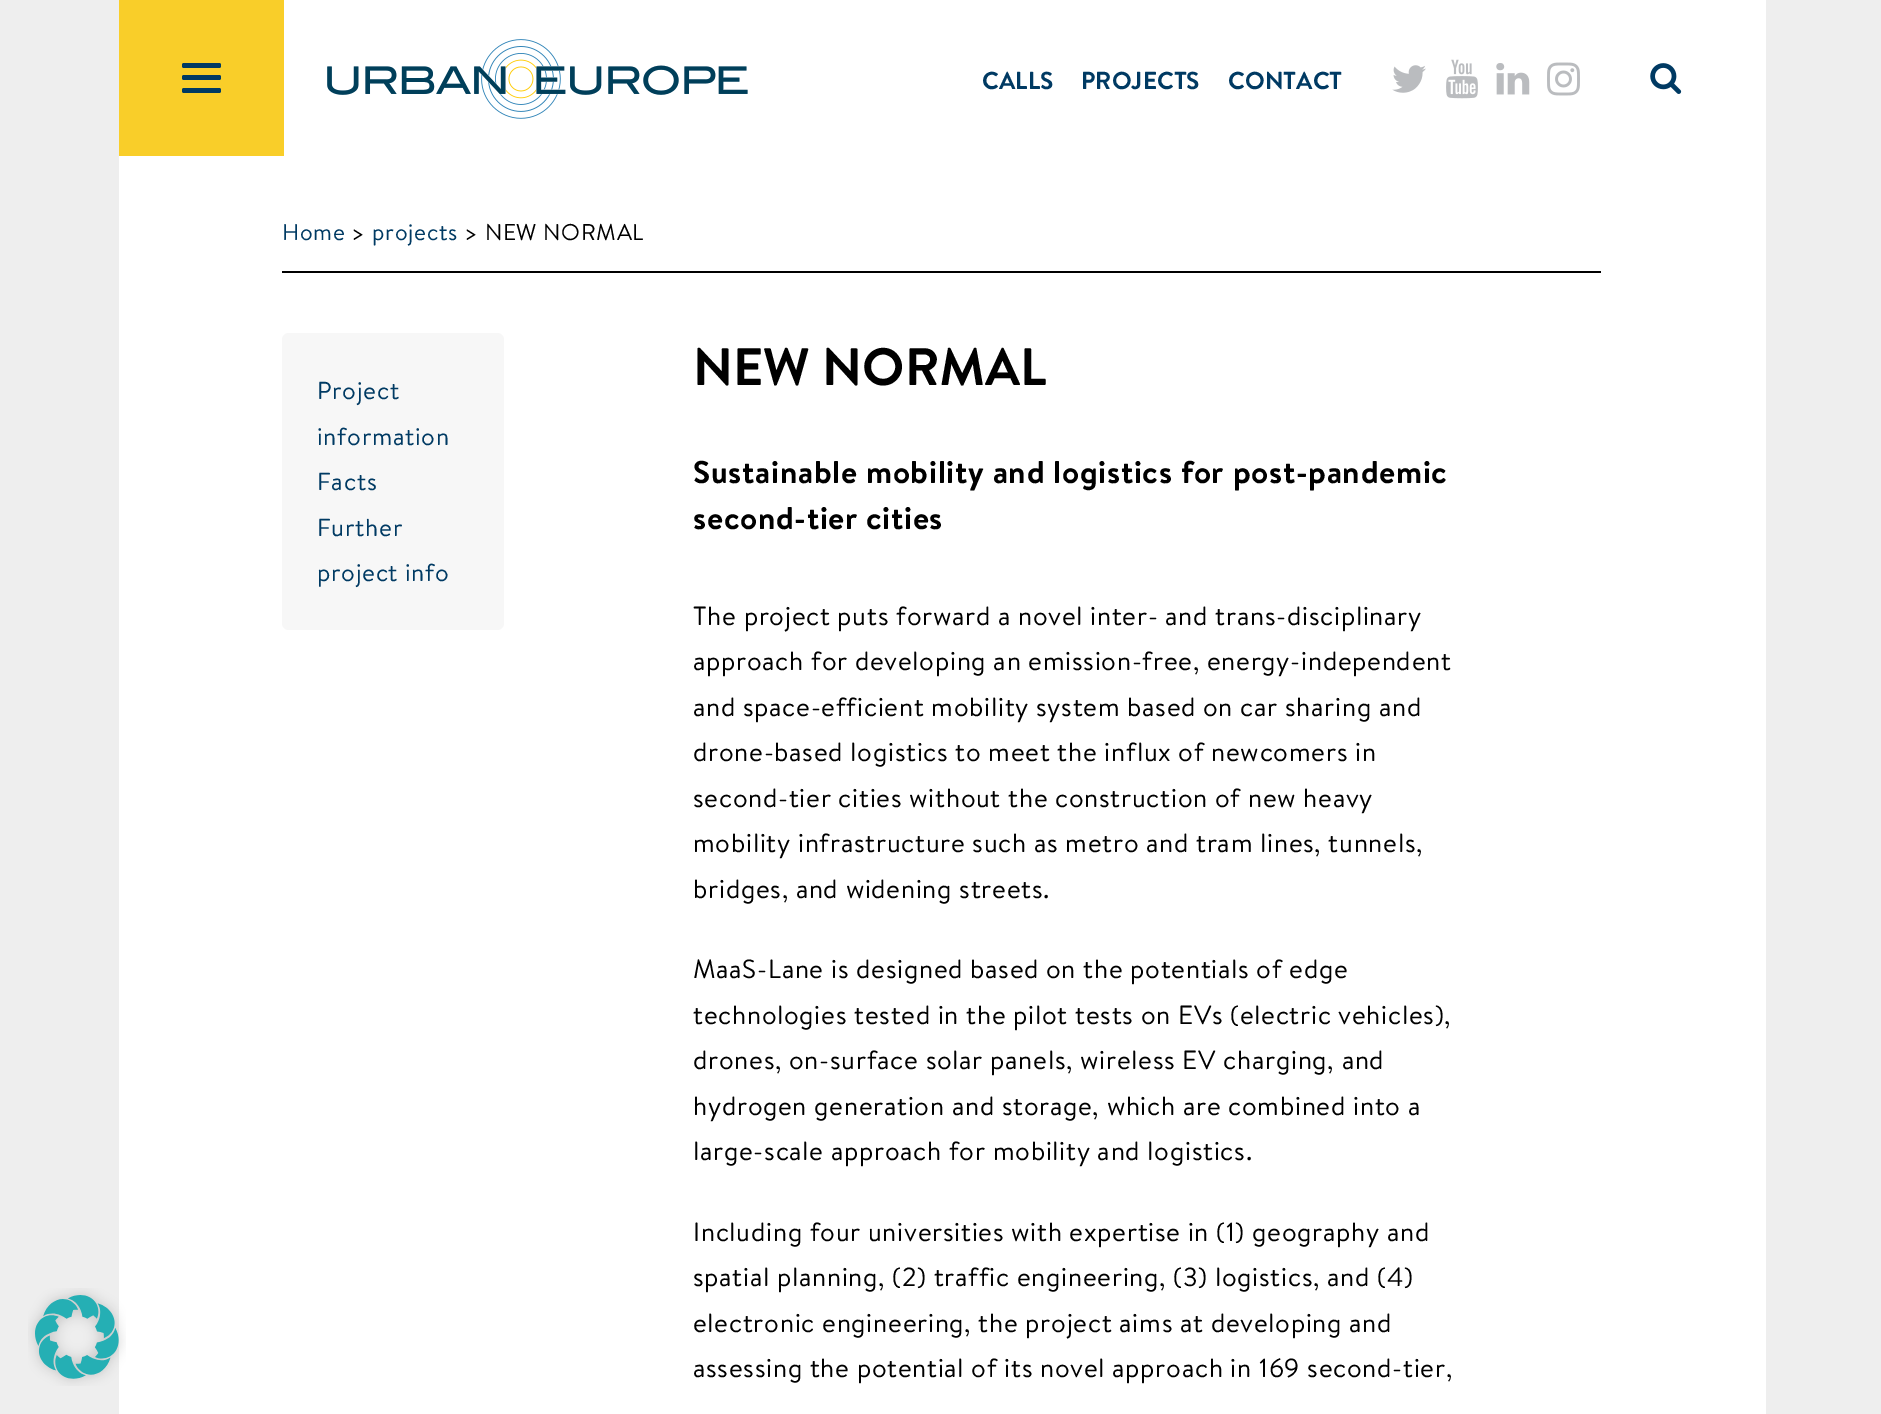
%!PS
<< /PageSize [1881 1414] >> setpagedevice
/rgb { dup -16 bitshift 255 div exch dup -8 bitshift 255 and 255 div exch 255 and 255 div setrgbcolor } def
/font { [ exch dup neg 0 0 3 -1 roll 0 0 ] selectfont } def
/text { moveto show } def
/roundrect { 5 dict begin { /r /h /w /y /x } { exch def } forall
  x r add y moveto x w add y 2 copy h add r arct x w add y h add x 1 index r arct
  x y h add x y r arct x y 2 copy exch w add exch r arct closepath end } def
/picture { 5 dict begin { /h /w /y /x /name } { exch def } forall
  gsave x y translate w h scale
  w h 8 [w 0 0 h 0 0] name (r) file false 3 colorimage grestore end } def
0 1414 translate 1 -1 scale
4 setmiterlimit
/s1 { /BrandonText-Bold 24.5 font 16#003A63 rgb } def
/s2 { /BrandonText-Bold 52.5 font 16#000000 rgb } def
16#EEEEEE rgb
0 0 1881 1414 rectfill
16#FFFFFF rgb
284 0 1482 156 rectfill
16#F9CE29 rgb
119 0 165 156 rectfill
16#003A63 rgb
182 63 39 5 2 roundrect fill
182 75 39 5 2 roundrect fill
182 88 39 5 2 roundrect fill
(pic1.raw) 327 39 421 80 picture
s1
(CALLS) 982 89 text
(PROJECTS) 1081 89 text
(CONTACT) 1228 89 text
(pic2.raw) 1392 65 34 28 picture
(pic3.raw) 1446 59 32 40 picture
(pic4.raw) 1496 63 34 32 picture
(pic5.raw) 1547 62 33 34 picture
(pic6.raw) 1650 63 32 31 picture
16#FFFFFF rgb
119 156 1647 1258 rectfill
(pic7.raw) 28 1288 98 98 picture
16#000000 rgb
282 271 1319 2 rectfill
/BrandonText-Regular 22.75 font
16#003A63 rgb
282 240 moveto 0.7 0 (Home) ashow
16#000000 rgb
351 240 moveto 0.7 0 (>) ashow
16#003A63 rgb
372 240 moveto 0.7 0 (projects) ashow
16#000000 rgb
464 240 moveto 0.7 0 (> NEW NORMAL) ashow
16#F7F7F7 rgb
282 333 222 297 7 roundrect fill
/BrandonText-Regular 24.5 font
16#003A63 rgb
317 399 moveto 0.7 0 (Project) ashow
317 445 moveto 0.7 0 (information) ashow
317 490 moveto 0.7 0 (Facts) ashow
317 536 moveto 0.7 0 (Further) ashow
317 581 moveto 0.7 0 (project info) ashow
s2
(NEW NORMAL) 693 385 text
/BrandonText-Bold 31.5 font
693 483 moveto 0.7 0 (Sustainable mobility and logistics for post-pandemic) ashow
693 529 moveto 0.7 0 (second-tier cities) ashow
/BrandonText-Regular 26.25 font
693 625 moveto 0.7 0 (The project puts forward a novel inter- and trans-disciplinary) ashow
693 670 moveto 0.7 0 (approach for developing an emission-free, energy-independent) ashow
693 716 moveto 0.7 0 (and space-efficient mobility system based on car sharing and) ashow
693 761 moveto 0.7 0 (drone-based logistics to meet the influx of newcomers in) ashow
693 807 moveto 0.7 0 (second-tier cities without the construction of new heavy) ashow
693 852 moveto 0.7 0 (mobility infrastructure such as metro and tram lines, tunnels,) ashow
693 898 moveto 0.7 0 (bridges, and widening streets.) ashow
693 978 moveto 0.7 0 (MaaS-Lane is designed based on the potentials of edge) ashow
693 1024 moveto 0.7 0 (technologies tested in the pilot tests on EVs \(electric vehicles\),) ashow
693 1069 moveto 0.7 0 (drones, on-surface solar panels, wireless EV charging, and) ashow
693 1115 moveto 0.7 0 (hydrogen generation and storage, which are combined into a) ashow
693 1160 moveto 0.7 0 (large-scale approach for mobility and logistics.) ashow
693 1241 moveto 0.7 0 (Including four universities with expertise in \(1\) geography and) ashow
693 1286 moveto 0.7 0 (spatial planning, \(2\) traffic engineering, \(3\) logistics, and \(4\)) ashow
693 1332 moveto 0.7 0 (electronic engineering, the project aims at developing and) ashow
693 1377 moveto 0.7 0 (assessing the potential of its novel approach in 169 second-tier,) ashow
showpage
